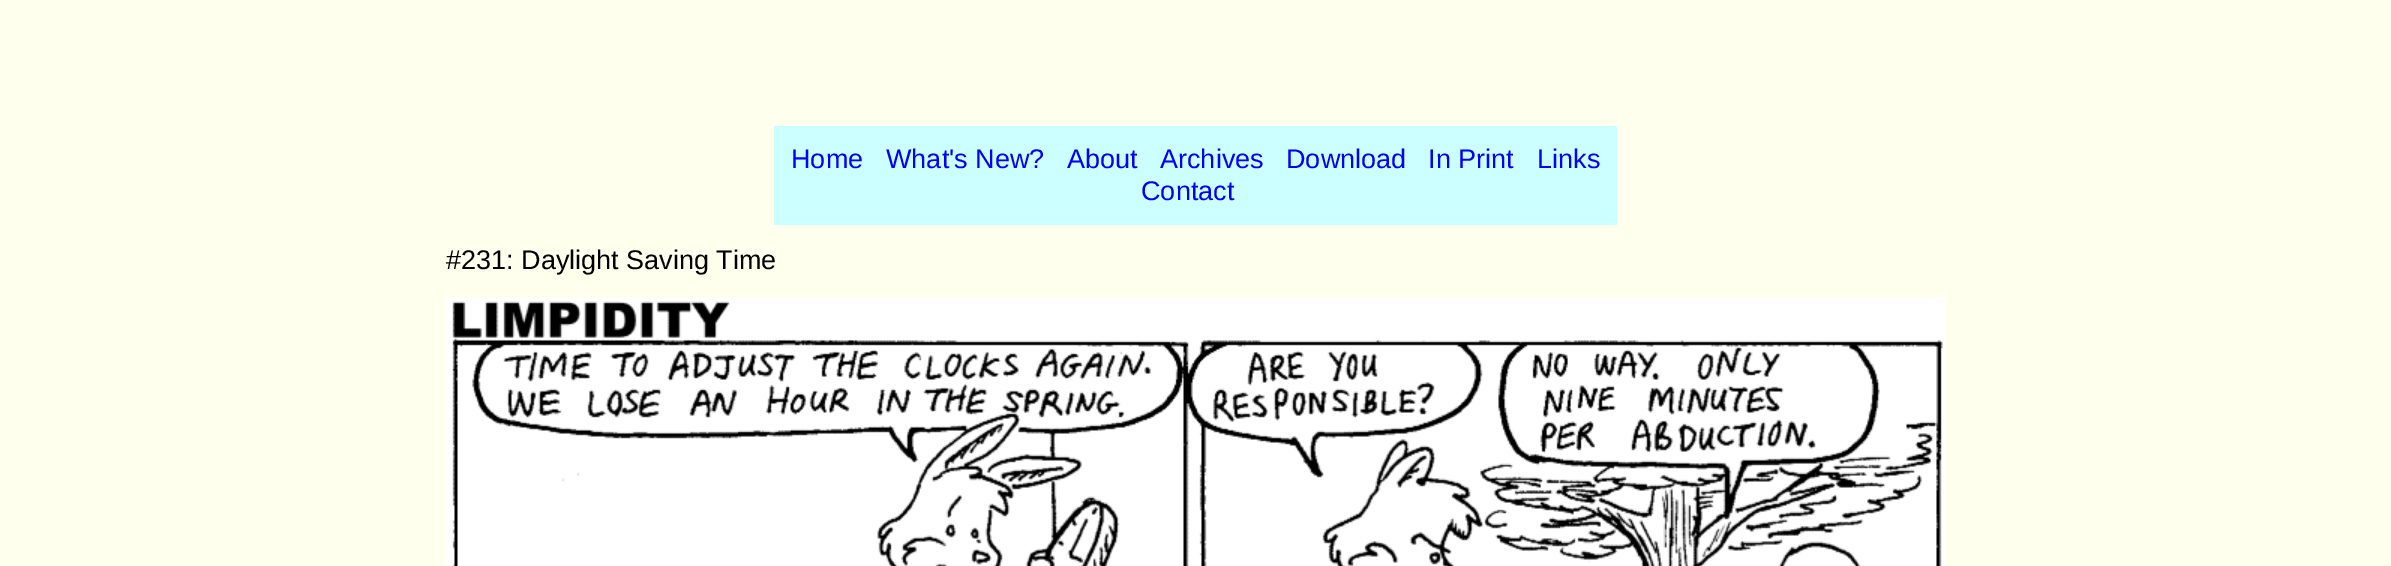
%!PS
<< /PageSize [2391 566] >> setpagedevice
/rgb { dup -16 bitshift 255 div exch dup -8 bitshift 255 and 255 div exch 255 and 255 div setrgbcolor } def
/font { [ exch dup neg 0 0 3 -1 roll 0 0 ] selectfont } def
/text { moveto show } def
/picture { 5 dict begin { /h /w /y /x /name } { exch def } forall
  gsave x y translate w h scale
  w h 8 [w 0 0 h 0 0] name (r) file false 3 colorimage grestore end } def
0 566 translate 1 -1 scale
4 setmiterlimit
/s1 { /LiberationSans-Regular 27 font 16#0000FF rgb } def
/s2 { /LiberationSans-Regular 27 font 16#000000 rgb } def
16#FFFFEE rgb
0 0 2391 566 rectfill
16#CCFFFF rgb
774 126 843 99 rectfill
s1
(Home) 791 168 text
(What's New?) 886 168 text
(About) 1067 168 text
(Archives) 1160 168 text
(Download) 1286 168 text
(In Print) 1428 168 text
(Links) 1537 168 text
(Contact) 1141 200 text
s2
(#231: Daylight Saving Time) 446 269 text
(pic1.raw) 445 297 1501 269 picture
showpage
